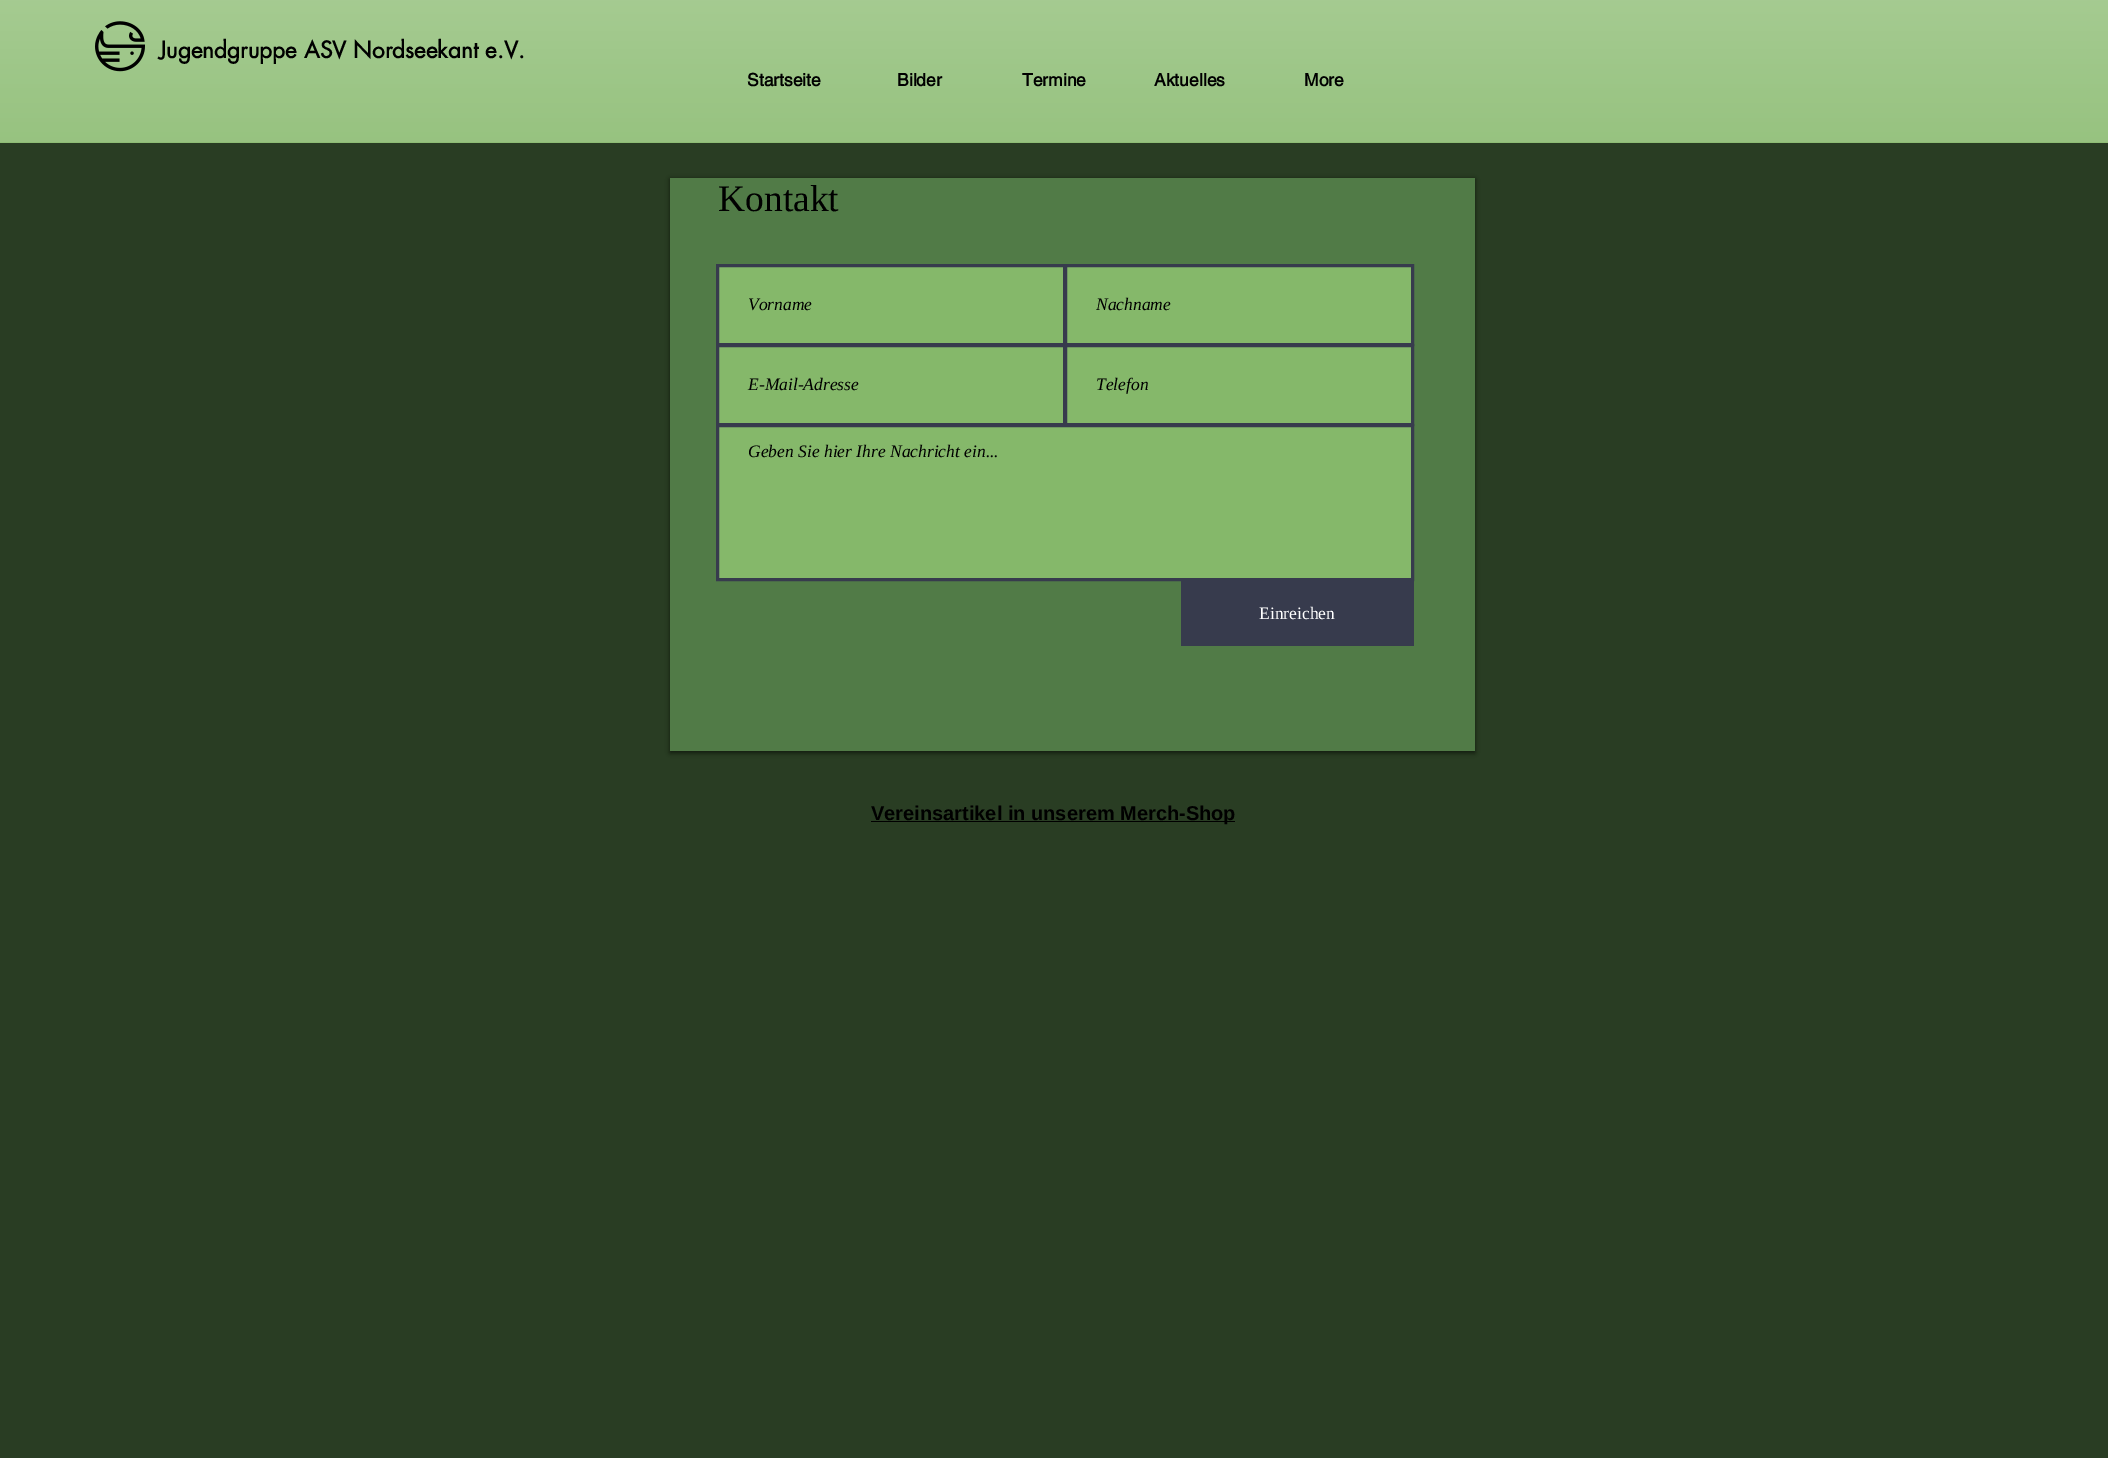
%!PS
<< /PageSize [2108 1458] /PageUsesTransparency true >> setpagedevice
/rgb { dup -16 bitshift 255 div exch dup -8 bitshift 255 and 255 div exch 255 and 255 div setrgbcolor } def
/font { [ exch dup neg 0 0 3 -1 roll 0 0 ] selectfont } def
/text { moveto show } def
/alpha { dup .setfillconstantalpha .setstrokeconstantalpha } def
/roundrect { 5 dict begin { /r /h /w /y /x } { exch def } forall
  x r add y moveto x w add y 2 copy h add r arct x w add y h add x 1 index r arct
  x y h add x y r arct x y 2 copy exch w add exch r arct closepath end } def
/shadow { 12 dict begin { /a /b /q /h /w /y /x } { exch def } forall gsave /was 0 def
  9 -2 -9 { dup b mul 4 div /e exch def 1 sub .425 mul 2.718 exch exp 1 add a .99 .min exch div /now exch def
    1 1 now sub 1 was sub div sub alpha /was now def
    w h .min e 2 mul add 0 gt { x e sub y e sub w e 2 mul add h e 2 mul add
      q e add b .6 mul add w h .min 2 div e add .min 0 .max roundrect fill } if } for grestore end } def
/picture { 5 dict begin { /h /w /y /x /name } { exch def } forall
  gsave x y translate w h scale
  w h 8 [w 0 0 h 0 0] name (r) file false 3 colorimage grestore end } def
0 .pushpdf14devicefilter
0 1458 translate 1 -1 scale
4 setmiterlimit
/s1 { /futura-Bold 22.5 font 16#000000 rgb } def
/s2 { /helvetica-Bold 17.5 font 16#000000 rgb } def
/s3 { /LiberationSerif-Regular 37.5 font 16#000000 rgb } def
/s4 { /LiberationSerif-Italic 17.5 font 16#000000 rgb } def
/s5 { /LiberationSerif-Regular 17.5 font 16#FFFFFF rgb } def
/s6 { /LiberationSans-Bold 20 font 16#000000 rgb } def
16#293D23 rgb
0 0 2108 1458 rectfill
16#85B86A rgb
0 0 2108 143 rectfill
(pic1.raw) 0 0 2108 143 picture
(pic2.raw) 95 21 50 51 picture
s1
(Jugendgruppe ASV Nordseekant e.V.) 159 58 text
s2
(Startseite) 747 86 text
(Bilder) 897 86 text
(Termine) 1022 86 text
(Aktuelles) 1154 86 text
(More) 1304 86 text
670 179 805 574 0 2.5 0.6 shadow
16#517B47 rgb
670 178 805 573 rectfill
s3
(Kontakt) 718 211 text
16#85B86A rgb
717.5 265.5 moveto 1064.5 265.5 lineto 1064.5 344.5 lineto 717.5 344.5 lineto closepath gsave fill grestore
16#373B4D rgb
3 setlinewidth
stroke
s4
(Vorname) 748 310 text
16#85B86A rgb
1065.5 265.5 moveto 1412.5 265.5 lineto 1412.5 344.5 lineto 1065.5 344.5 lineto closepath gsave fill grestore
16#373B4D rgb
stroke
s4
(Nachname) 1096 310 text
16#85B86A rgb
717.5 345.5 moveto 1064.5 345.5 lineto 1064.5 424.5 lineto 717.5 424.5 lineto closepath gsave fill grestore
16#373B4D rgb
stroke
s4
(E-Mail-Adresse) 748 390 text
16#85B86A rgb
1065.5 345.5 moveto 1412.5 345.5 lineto 1412.5 424.5 lineto 1065.5 424.5 lineto closepath gsave fill grestore
16#373B4D rgb
stroke
s4
(Telefon) 1096 390 text
16#85B86A rgb
717.5 425.5 moveto 1412.5 425.5 lineto 1412.5 579.5 lineto 717.5 579.5 lineto closepath gsave fill grestore
16#373B4D rgb
stroke
s4
(Geben Sie hier Ihre Nachricht ein...) 748 457 text
16#373B4D rgb
1181 581 233 65 rectfill
s5
(Einreichen) 1259 619 text
16#000000 rgb
871 821 364 1 rectfill
s6
(Vereinsartikel in unserem Merch-Shop) 871 820 text
.poppdf14devicefilter showpage
